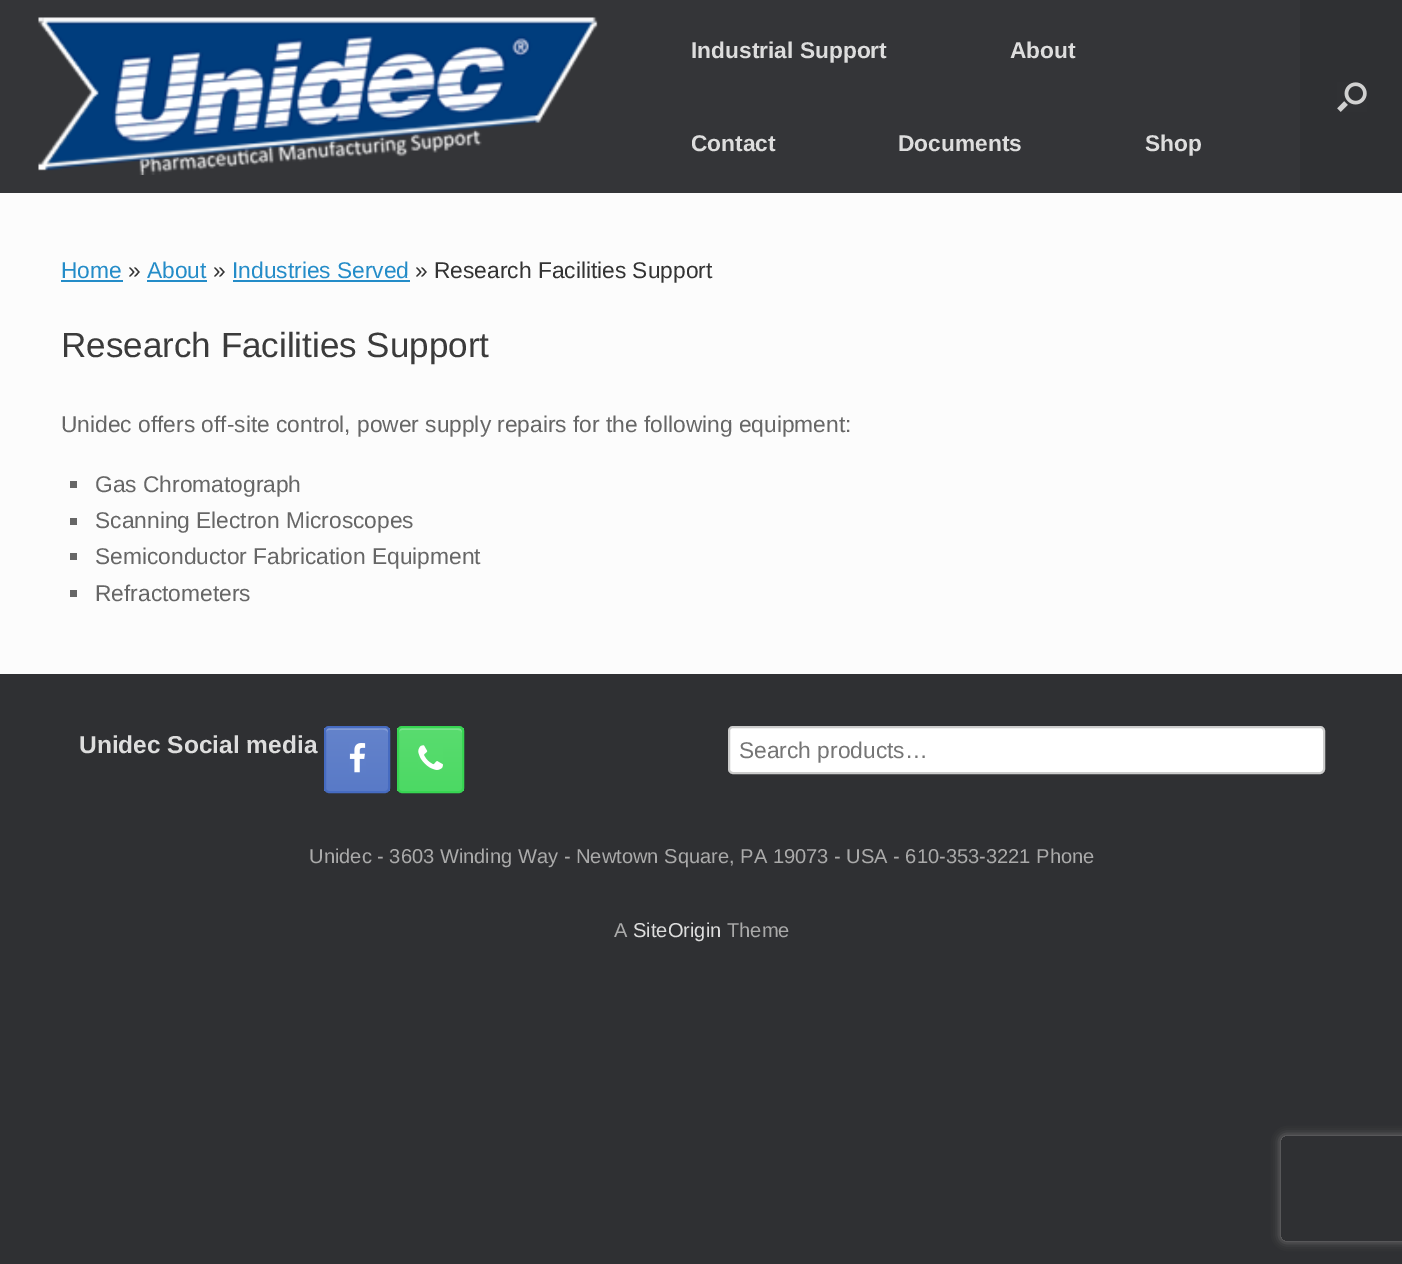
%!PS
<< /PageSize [1402 1264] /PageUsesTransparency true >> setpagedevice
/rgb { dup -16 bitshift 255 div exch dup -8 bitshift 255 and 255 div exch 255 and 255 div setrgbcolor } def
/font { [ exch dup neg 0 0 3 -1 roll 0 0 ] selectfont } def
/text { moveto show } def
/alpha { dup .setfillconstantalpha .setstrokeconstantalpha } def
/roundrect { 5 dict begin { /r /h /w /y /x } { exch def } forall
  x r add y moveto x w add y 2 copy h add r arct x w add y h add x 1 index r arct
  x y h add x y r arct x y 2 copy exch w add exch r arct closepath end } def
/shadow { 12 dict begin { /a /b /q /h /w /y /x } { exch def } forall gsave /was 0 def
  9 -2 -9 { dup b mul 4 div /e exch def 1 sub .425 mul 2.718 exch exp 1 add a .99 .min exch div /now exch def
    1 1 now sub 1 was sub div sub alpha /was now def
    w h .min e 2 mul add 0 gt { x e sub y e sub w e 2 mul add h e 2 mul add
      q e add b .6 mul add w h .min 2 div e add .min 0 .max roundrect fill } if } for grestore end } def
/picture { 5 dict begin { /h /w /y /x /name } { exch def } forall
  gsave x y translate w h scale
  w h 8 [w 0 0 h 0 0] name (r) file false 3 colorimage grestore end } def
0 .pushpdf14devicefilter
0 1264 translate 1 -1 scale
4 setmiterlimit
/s1 { /LiberationSans-Bold 22.75 font 16#DDDDDD rgb } def
/s2 { /LiberationSans-Regular 22.75 font 16#248CC8 rgb } def
/s3 { /LiberationSans-Regular 22.75 font 16#333333 rgb } def
/s4 { /LiberationSans-Regular 35 font 16#3B3B3B rgb } def
/s5 { /LiberationSans-Regular 22.75 font 16#666666 rgb } def
/s6 { /LiberationSans-Bold 24.5 font 16#DDDDDD rgb } def
/s7 { /LiberationSans-Regular 22.75 font 16#757575 rgb } def
/s8 { /LiberationSans-Regular 20.1 font 16#AAAAAA rgb } def
/s9 { /LiberationSans-Regular 20.1 font 16#DDDDDD rgb } def
16#2F3033 rgb
0 0 1402 1264 rectfill
16#343538 rgb
0 0 1300 193 rectfill
(pic1.raw) 38 17 560 158 picture
s1
(Industrial Support) 691 58 text
(About) 1010 58 text
(Contact) 691 151 text
(Documents) 898 151 text
(Shop) 1145 151 text
(pic2.raw) 1337 82 30 30 picture
16#FCFCFC rgb
0 193 1402 481 rectfill
s2
(Home) 61 278 text
61 280 62 2 rectfill
s3
(») 128 278 text
s2
(About) 147 278 text
147 280 60 2 rectfill
s3
(») 213 278 text
s2
(Industries Served) 232 278 text
233 280 177 2 rectfill
s3
(» Research Facilities Support) 415 278 text
s4
(Research Facilities Support) 61 357 text
s5
(Unidec offers off-site control, power supply repairs for the following equipment:) 61 432 text
70 481 7 7 rectfill
(Gas Chromatograph) 95 492 text
70 518 7 7 rectfill
(Scanning Electron Microscopes) 95 528 text
70 553 7 7 rectfill
(Semiconductor Fabrication Equipment) 95 564 text
70 590 7 7 rectfill
(Refractometers) 95 601 text
s6
(Unidec Social media) 79 753 text
gsave
324 726 66 67 5 roundrect clip newpath
gsave 324 728 moveto 390 728 lineto 390 791 lineto 324 791 lineto closepath clip newpath
<< /ShadingType 2 /ColorSpace /DeviceRGB /Coords [357 791 357 728] /Extend [true true] /Function << /FunctionType 2 /Domain [0 1] /C0 [0.349 0.478 0.78] /C1 [0.392 0.514 0.796] /N 1 >> >> shfill grestore
grestore
0.2 alpha
16#FFFFFF rgb
329 730 moveto 376 730 lineto 377 730 388 728 388 733 curveto 388 790 lineto 389 789 389 788 389 787 curveto 389 732 lineto 389 730 387 728 385 728 curveto 330 728 lineto 328 728 326 730 326 732 curveto 326 733 lineto 326 731 327 730 329 730 curveto closepath fill
1 alpha
16#466BC1 rgb
2 setlinewidth
325 727 64 65 4 roundrect stroke
(pic3.raw) 349 743 17 30 picture
gsave
397 726 67 67 5 roundrect clip newpath
gsave 397 728 moveto 464 728 lineto 464 791 lineto 397 791 lineto closepath clip newpath
<< /ShadingType 2 /ColorSpace /DeviceRGB /Coords [431 791 431 728] /Extend [true true] /Function << /FunctionType 2 /Domain [0 1] /C0 [0.298 0.851 0.392] /C1 [0.349 0.863 0.435] /N 1 >> >> shfill grestore
grestore
16#7AE38C rgb
402 730 moveto 458 730 lineto 460 730 462 731 462 733 curveto 462 726 454 728 449 728 curveto 412 728 lineto 407 728 399 726 399 733 curveto 399 731 401 730 402 730 curveto closepath fill
16#37D552 rgb
398 727 65 65 4 roundrect stroke
(pic4.raw) 418 745 25 25 picture
16#FFFFFF rgb
729 727 595 46 4 roundrect gsave fill grestore
16#CCCCCC rgb
stroke
s7
(Search products…) 739 758 text
s8
(Unidec - 3603 Winding Way - Newtown Square, PA 19073 - USA - 610-353-3221 Phone) 309 863 text
(A) 614 937 text
s9
(SiteOrigin) 633 937 text
s8
(Theme) 727 937 text
gsave
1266 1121 moveto 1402 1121 lineto 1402 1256 lineto 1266 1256 lineto closepath 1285 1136 moveto 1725 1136 lineto 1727 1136 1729 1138 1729 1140 curveto 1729 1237 lineto 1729 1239 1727 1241 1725 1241 curveto 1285 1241 lineto 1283 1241 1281 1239 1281 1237 curveto 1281 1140 lineto 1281 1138 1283 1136 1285 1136 curveto closepath eoclip newpath
16#808080 rgb
1281 1136 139 105 4 4.5 1 shadow
grestore
.poppdf14devicefilter showpage
